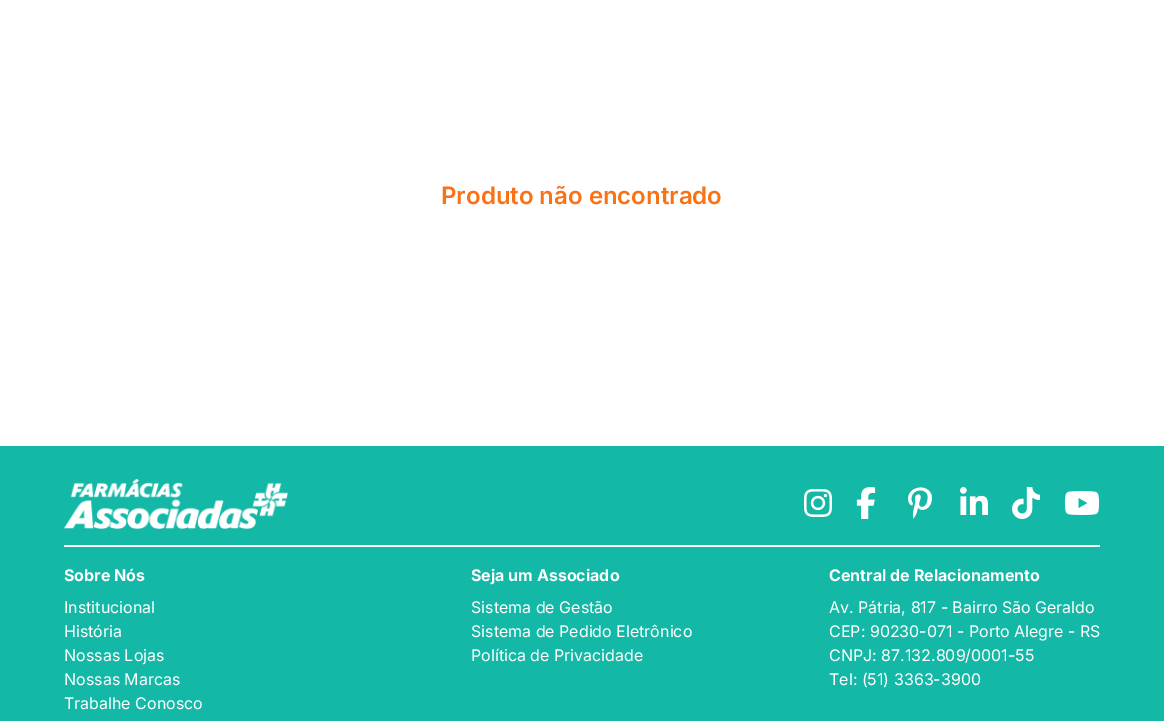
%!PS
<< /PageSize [1164 721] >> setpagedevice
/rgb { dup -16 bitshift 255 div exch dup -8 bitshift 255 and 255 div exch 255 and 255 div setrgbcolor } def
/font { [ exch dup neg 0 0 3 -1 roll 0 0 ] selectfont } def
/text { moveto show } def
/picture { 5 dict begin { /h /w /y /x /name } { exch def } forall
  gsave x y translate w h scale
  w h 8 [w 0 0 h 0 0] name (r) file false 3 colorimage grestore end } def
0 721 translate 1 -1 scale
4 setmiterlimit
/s1 { /Inter-SemiBold 24 font 16#F97316 rgb } def
/s2 { /Inter-Bold 16 font 16#FFFFFF rgb } def
/s3 { /Inter-Regular 16 font 16#FFFFFF rgb } def
16#FFFFFF rgb
0 0 1164 721 rectfill
s1
(Produto não encontrado) 441 204 text
16#14B8A6 rgb
0 446 1164 275 rectfill
(pic1.raw) 64 479 224 50 picture
(pic2.raw) 804 489 28 28 picture
(pic3.raw) 856 487 20 32 picture
(pic4.raw) 908 487 24 32 picture
(pic5.raw) 960 487 28 28 picture
(pic6.raw) 1012 487 28 32 picture
(pic7.raw) 1064 491 36 24 picture
16#FFFFFF rgb
64 545 1036 2 rectfill
s2
(Sobre Nós) 64 581 text
s3
(Institucional) 64 613 text
(História) 64 637 text
(Nossas Lojas) 64 661 text
(Nossas Marcas) 64 685 text
(Trabalhe Conosco) 64 709 text
s2
(Seja um Associado) 471 581 text
s3
(Sistema de Gestão) 471 613 text
(Sistema de Pedido Eletrônico) 471 637 text
(Política de Privacidade) 471 661 text
s2
(Central de Relacionamento) 829 581 text
s3
(Av. Pátria, 817 - Bairro São Geraldo) 829 613 text
(CEP: 90230-071 - Porto Alegre - RS) 829 637 text
(CNPJ: 87.132.809/0001-55) 829 661 text
(Tel: \(51\) 3363-3900) 829 685 text
showpage
